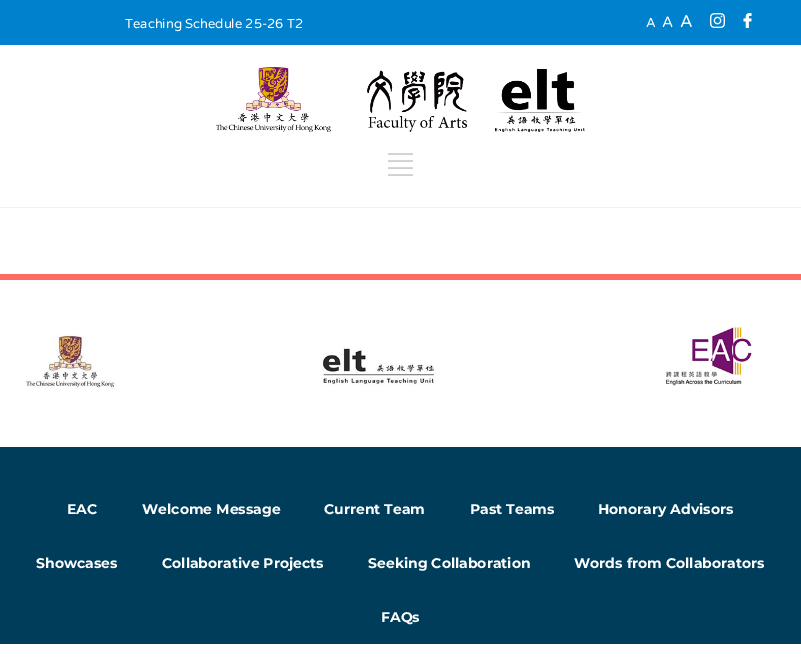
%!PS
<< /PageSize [801 661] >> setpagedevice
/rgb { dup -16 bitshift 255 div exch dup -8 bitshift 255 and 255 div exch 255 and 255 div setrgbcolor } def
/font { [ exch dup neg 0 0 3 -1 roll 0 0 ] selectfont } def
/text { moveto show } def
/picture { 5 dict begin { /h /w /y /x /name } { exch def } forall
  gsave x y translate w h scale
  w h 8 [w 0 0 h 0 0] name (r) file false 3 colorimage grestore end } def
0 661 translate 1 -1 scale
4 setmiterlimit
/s1 { /VarelaRound-Regular 13 font 16#FFFFFF rgb } def
/s2 { /VarelaRound-Regular 15 font 16#FFFFFF rgb } def
/s3 { /VarelaRound-Regular 17 font 16#FFFFFF rgb } def
/s4 { /Montserrat-Bold 14 font 16#FFFFFF rgb } def
16#FFFFFF rgb
0 0 801 661 rectfill
16#0081CD rgb
0 0 801 45 rectfill
s1
(Teaching Schedule 25-26 T2) 125 28 text
(A) 646 27 text
s2
(A) 662 27 text
s3
(A) 680 27 text
(pic1.raw) 710 13 15 15 picture
(pic2.raw) 743 13 9 15 picture
16#F1F1F1 rgb
0 207 801 1 rectfill
(pic3.raw) 216 67 115 65 picture
(pic4.raw) 367 70 101 62 picture
(pic5.raw) 495 68 90 64 picture
(pic6.raw) 388 153 25 23 picture
16#FE6C61 rgb
0 274 801 6 rectfill
(pic7.raw) 25 326 727 63 picture
16#003D5B rgb
0 447 801 197 rectfill
s4
(EAC) 67 514 text
(Welcome Message) 142 514 text
(Current Team) 324 514 text
(Past Teams) 470 514 text
(Honorary Advisors) 598 514 text
(Showcases) 36 568 text
(Collaborative Projects) 162 568 text
(Seeking Collaboration) 368 568 text
(Words from Collaborators) 574 568 text
(FAQs) 381 622 text
showpage
